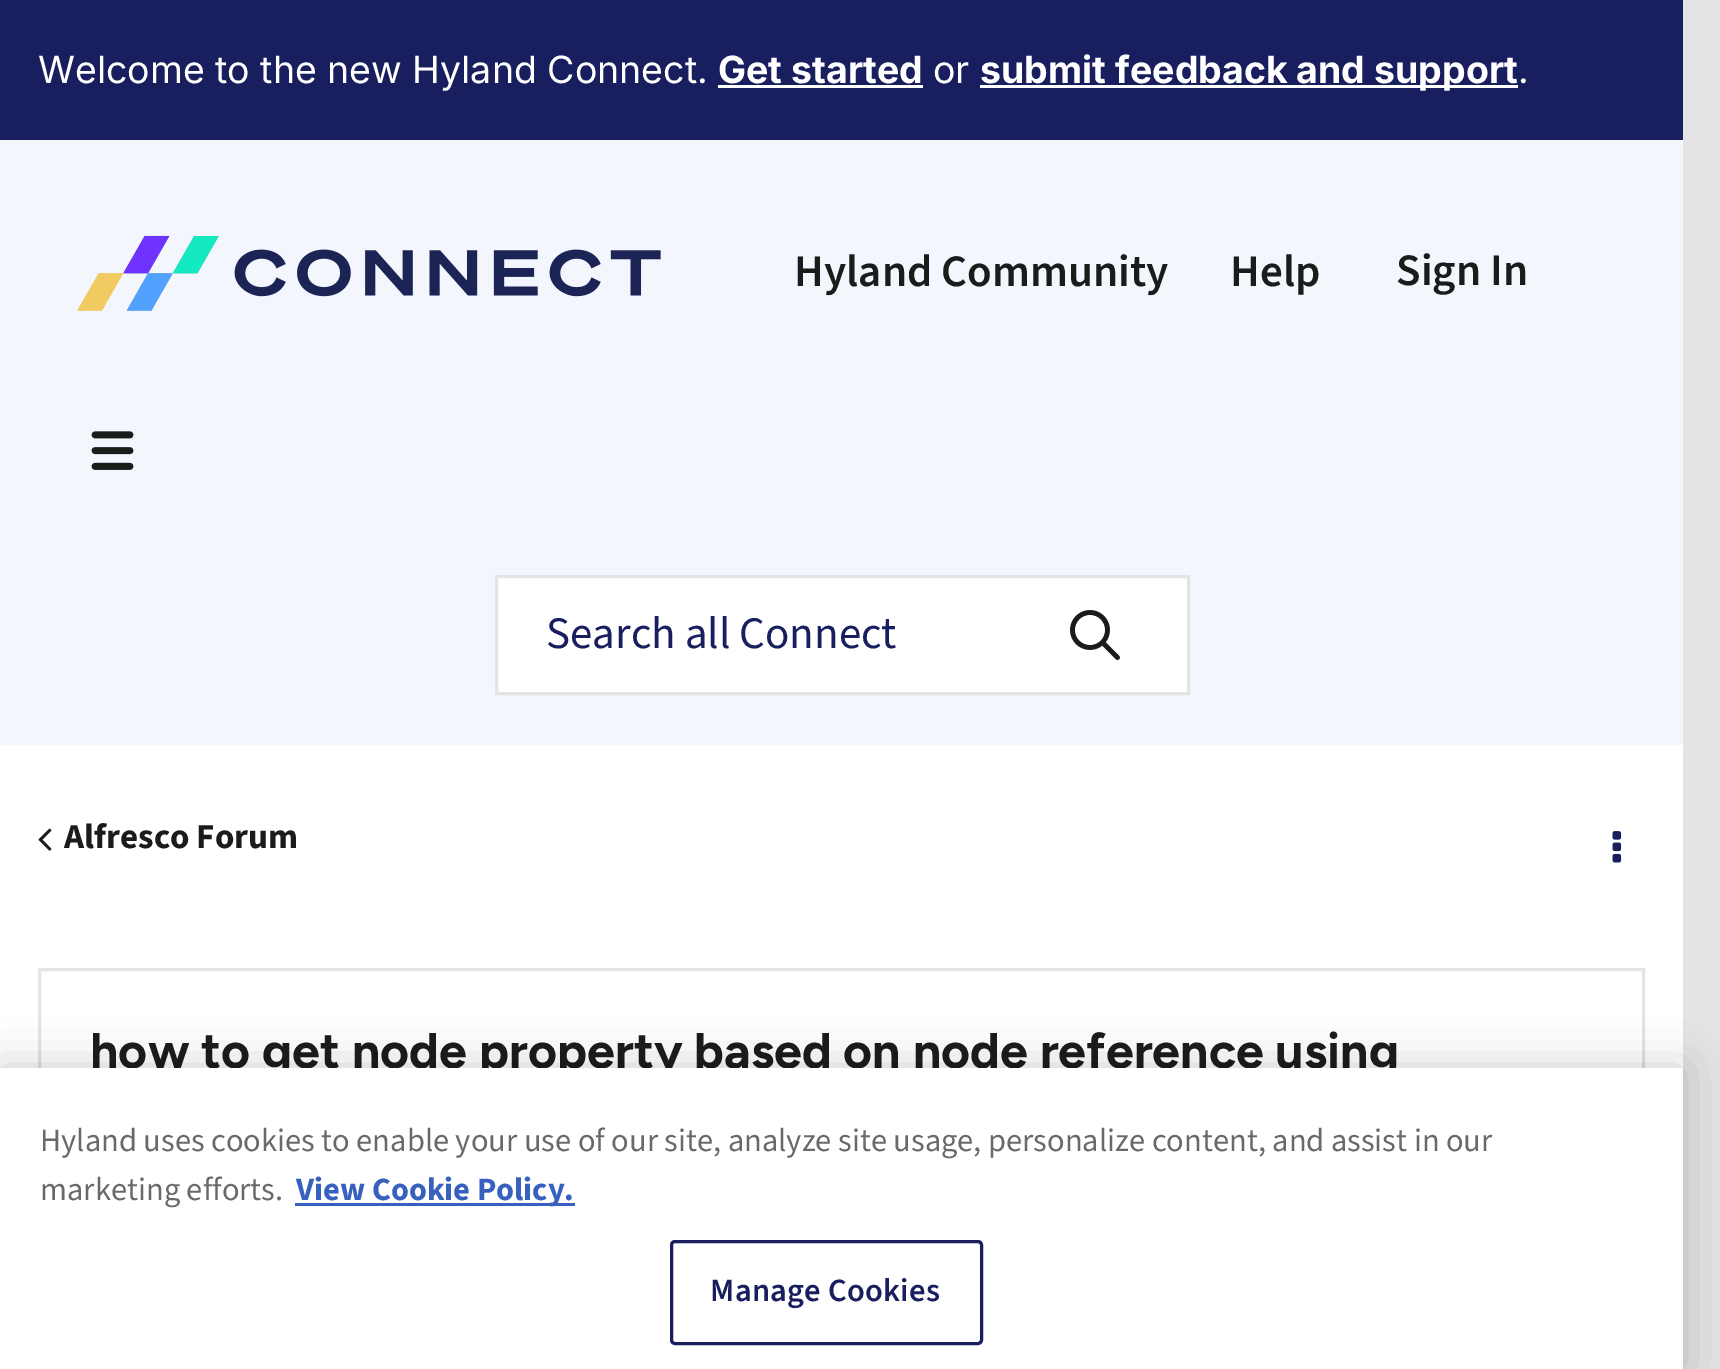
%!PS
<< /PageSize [1720 1369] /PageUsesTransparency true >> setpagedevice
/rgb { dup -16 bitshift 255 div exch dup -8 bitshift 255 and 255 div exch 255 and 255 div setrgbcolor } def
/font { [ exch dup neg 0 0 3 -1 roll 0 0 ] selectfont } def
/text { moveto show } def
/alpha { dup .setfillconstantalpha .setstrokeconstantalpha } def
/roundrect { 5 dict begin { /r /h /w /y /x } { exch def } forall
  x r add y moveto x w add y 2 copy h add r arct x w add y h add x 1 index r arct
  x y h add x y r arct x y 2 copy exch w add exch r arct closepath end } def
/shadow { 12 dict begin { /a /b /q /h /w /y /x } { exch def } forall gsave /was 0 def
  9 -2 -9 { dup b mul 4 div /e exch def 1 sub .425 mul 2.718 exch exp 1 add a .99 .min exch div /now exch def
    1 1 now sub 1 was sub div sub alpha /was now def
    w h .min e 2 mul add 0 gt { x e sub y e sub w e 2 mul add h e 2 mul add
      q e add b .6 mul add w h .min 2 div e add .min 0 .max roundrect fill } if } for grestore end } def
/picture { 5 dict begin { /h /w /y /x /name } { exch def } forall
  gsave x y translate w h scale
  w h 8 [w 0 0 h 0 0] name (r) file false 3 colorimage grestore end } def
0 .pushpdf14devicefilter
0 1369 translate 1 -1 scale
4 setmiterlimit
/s1 { /Inter-Regular 37.5 font 16#FFFFFF rgb } def
/s2 { /Inter-Bold 37.5 font 16#FFFFFF rgb } def
/s3 { /SourceSans3-SemiBold 45 font 16#191C1A rgb } def
/s4 { /SourceSans3-Regular 45 font 16#191F5E rgb } def
/s5 { /SourceSans3-Bold 35 font 16#191C1A rgb } def
/s6 { /Figtree-Bold 50 font 16#191C1A rgb } def
/s7 { /SourceSans3-Regular 32.5 font 16#696969 rgb } def
/s8 { /SourceSans3-Bold 32.5 font 16#3860BE rgb } def
16#E4E4E4 rgb
0 0 1720 1369 rectfill
16#FFFFFF rgb
0 745 1683 323 rectfill
16#191F5E rgb
0 0 1683 140 rectfill
s1
(Welcome to the new Hyland Connect.) 38 83 text
s2
(Get started) 718 83 text
718 85 205 3 rectfill
s1
(or) 933 83 text
980 85 538 3 rectfill
s2
(submit feedback and support) 980 83 text
s1
(.) 1518 83 text
16#F4F6FE rgb
0 140 1683 605 rectfill
(pic1.raw) 77 235 584 76 picture
s3
(Hyland Community) 794 286 text
(Help) 1230 286 text
(Sign In) 1396 285 text
(pic2.raw) 91 431 43 39 picture
16#FFFFFF rgb
496.5 576.5 moveto 1188.5 576.5 lineto 1188.5 693.5 lineto 496.5 693.5 lineto closepath gsave fill grestore
16#E4E4E4 rgb
3 setlinewidth
stroke
s4
(Search all Connect) 546 648 text
(pic3.raw) 1070 610 50 50 picture
(pic4.raw) 38 828 14 23 picture
s5
(Alfresco Forum) 64 848 text
(pic5.raw) 1612 831 10 32 picture
16#E4E4E4 rgb
39.5 969.5 1604 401 rectstroke
s6
(how to get node property based on node reference using) 90 1068 text
16#000000 rgb
0 1068 1683 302 0 22.5 0.2 shadow
16#FFFFFF rgb
0 1068 1683 301 rectfill
s7
(Hyland uses cookies to enable your use of our site, analyze site usage, personalize content, and assist in our) 40 1151 text
(marketing efforts.) 40 1200 text
16#3860BE rgb
295 1203 280 3 rectfill
s8
(View Cookie Policy.) 296 1200 text
16#191F5E rgb
671.5 1241.5 310 102 3.5 roundrect stroke
/SourceSans3-SemiBold 32.5 font
710 1301 moveto 0.3 0 (Manage Cookies) ashow
.poppdf14devicefilter showpage
